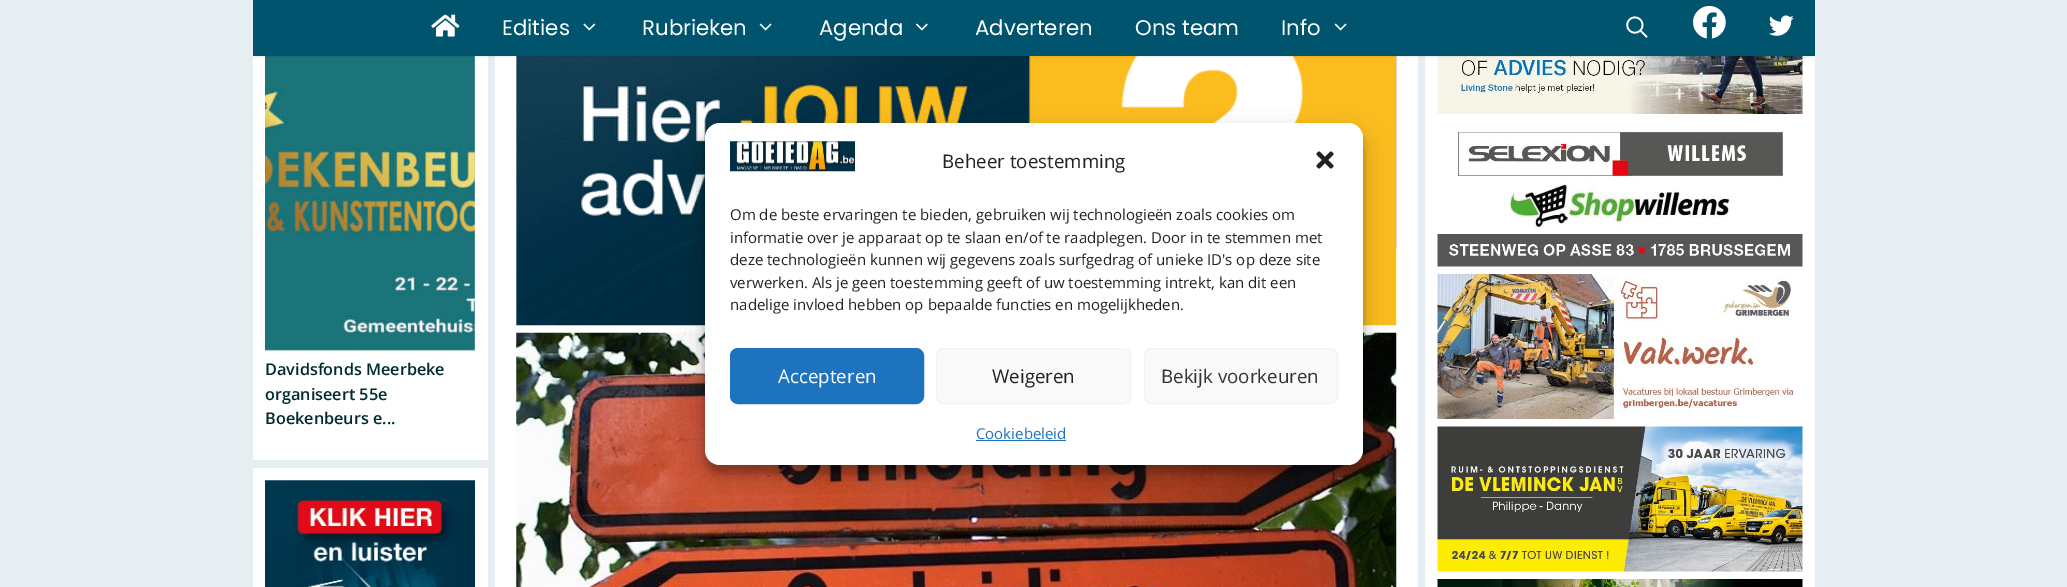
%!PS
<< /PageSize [2067 587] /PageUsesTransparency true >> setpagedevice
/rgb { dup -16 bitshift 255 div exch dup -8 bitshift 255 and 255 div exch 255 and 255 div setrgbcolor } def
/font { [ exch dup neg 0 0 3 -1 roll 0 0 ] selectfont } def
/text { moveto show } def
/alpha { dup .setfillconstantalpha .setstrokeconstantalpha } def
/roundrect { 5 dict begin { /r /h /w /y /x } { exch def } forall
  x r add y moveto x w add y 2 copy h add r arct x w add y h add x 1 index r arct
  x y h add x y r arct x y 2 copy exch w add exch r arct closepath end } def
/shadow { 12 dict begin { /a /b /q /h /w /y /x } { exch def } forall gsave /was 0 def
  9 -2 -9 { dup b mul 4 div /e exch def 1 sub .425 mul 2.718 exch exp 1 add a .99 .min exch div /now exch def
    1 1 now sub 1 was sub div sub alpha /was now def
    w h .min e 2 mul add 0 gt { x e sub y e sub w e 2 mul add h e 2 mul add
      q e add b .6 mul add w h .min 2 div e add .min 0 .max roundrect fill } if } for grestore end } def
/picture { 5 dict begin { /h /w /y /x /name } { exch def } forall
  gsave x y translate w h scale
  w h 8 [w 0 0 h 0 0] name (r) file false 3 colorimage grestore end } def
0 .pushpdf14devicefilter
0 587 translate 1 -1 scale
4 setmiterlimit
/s1 { /Poppins-Regular 21.25 font 16#FFFFFF rgb } def
/s2 { /OpenSans-SemiBold 16.25 font 16#002C2D rgb } def
/s3 { /OpenSans-Regular 18.75 font 16#222222 rgb } def
/s4 { /OpenSans-Regular 15 font 16#222222 rgb } def
/s5 { /OpenSans-Regular 18.75 font 16#FFFFFF rgb } def
/s6 { /OpenSans-Regular 18.75 font 16#333333 rgb } def
/s7 { /OpenSans-Regular 15 font 16#1E73BE rgb } def
16#E6EEF1 rgb
0 0 2067 587 rectfill
16#FFFFFF rgb
253 56 235 404 rectfill
(pic8.raw) 265 56 210 295 picture
495 56 923 531 rectfill
(pic10.raw) 516 56 1 270 picture
(pic11.raw) 516 56 881 270 picture
(pic12.raw) 1396 56 1 270 picture
1425 56 390 531 rectfill
(pic14.raw) 1437 56 366 58 picture
16#000000 rgb
255 5 1558 51 0 1 0.2 shadow
16#00546E rgb
253 0 1562 56 rectfill
(pic1.raw) 431 14 29 23 picture
s1
(Edities) 502 35 text
(pic2.raw) 583 23 13 8 picture
(Rubrieken) 642 35 text
(pic3.raw) 759 23 13 8 picture
(Agenda) 819 35 text
(pic4.raw) 916 23 12 8 picture
(Adverteren) 975 35 text
(Ons team) 1135 35 text
(Info) 1281 35 text
(pic3.raw) 1334 23 13 8 picture
(pic5.raw) 1626 16 22 22 picture
(pic6.raw) 1693 6 33 33 picture
(pic7.raw) 1768 15 26 21 picture
s2
(Davidsfonds Meerbeke) 265 375 text
(organiseert 55e) 265 400 text
(Boekenbeurs e...) 265 424 text
16#FFFFFF rgb
253 468 235 119 rectfill
(pic9.raw) 265 480 210 107 picture
(pic13.raw) 516 332 881 255 picture
(pic15.raw) 1437 130 366 137 picture
(pic16.raw) 1437 274 357 145 picture
(pic17.raw) 1437 426 366 146 picture
(pic18.raw) 1437 579 366 8 picture
16#000000 rgb
705 130 658 343 15 4 0.23 shadow
705 135 658 343 15 12.5 0.19 shadow
16#FFFFFF rgb
705 123 658 342 15 roundrect fill
(pic19.raw) 730 141 125 31 picture
s3
(Beheer toestemming) 942 168 text
(pic20.raw) 1316 151 18 18 picture
s4
(Om de beste ervaringen te bieden, gebruiken wij technologieën zoals cookies om) 730 220 text
(informatie over je apparaat op te slaan en/of te raadplegen. Door in te stemmen met) 730 243 text
(deze technologieën kunnen wij gegevens zoals surfgedrag of unieke ID's op deze site) 730 265 text
(verwerken. Als je geen toestemming geeft of uw toestemming intrekt, kan dit een) 730 288 text
(nadelige invloed hebben op bepaalde functies en mogelijkheden.) 730 310 text
16#1E73BE rgb
730.5 348.5 193 55 7.5 roundrect gsave fill grestore
stroke
s5
(Accepteren) 778 383 text
16#F9F9F9 rgb
936.5 348.5 194 55 7.5 roundrect gsave fill grestore
16#F2F2F2 rgb
stroke
s3
(Weigeren) 992 383 text
16#F9F9F9 rgb
1144.5 348.5 193 55 7.5 roundrect gsave fill grestore
16#F2F2F2 rgb
stroke
s6
(Bekijk voorkeuren) 1161 383 text
s7
(Cookiebeleid) 976 439 text
976 440 90 1 rectfill
.poppdf14devicefilter showpage
